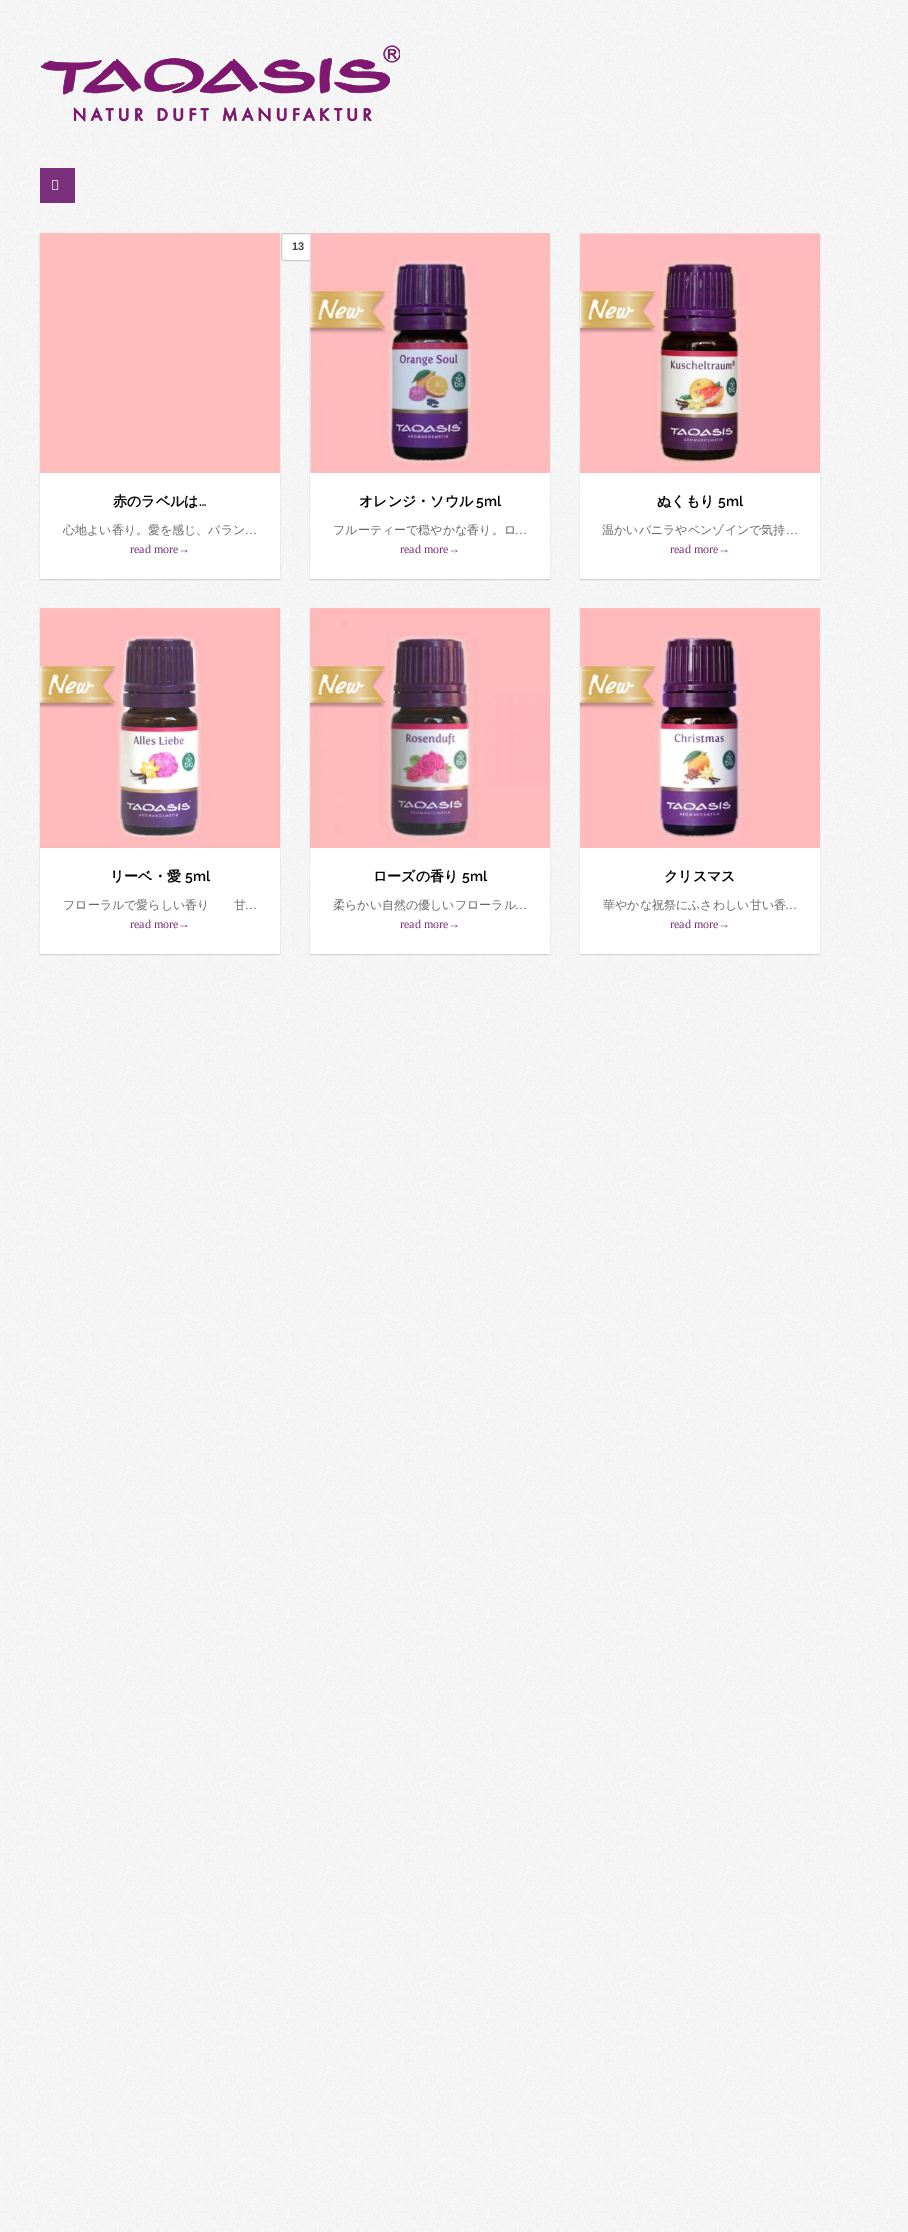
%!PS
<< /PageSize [908 2232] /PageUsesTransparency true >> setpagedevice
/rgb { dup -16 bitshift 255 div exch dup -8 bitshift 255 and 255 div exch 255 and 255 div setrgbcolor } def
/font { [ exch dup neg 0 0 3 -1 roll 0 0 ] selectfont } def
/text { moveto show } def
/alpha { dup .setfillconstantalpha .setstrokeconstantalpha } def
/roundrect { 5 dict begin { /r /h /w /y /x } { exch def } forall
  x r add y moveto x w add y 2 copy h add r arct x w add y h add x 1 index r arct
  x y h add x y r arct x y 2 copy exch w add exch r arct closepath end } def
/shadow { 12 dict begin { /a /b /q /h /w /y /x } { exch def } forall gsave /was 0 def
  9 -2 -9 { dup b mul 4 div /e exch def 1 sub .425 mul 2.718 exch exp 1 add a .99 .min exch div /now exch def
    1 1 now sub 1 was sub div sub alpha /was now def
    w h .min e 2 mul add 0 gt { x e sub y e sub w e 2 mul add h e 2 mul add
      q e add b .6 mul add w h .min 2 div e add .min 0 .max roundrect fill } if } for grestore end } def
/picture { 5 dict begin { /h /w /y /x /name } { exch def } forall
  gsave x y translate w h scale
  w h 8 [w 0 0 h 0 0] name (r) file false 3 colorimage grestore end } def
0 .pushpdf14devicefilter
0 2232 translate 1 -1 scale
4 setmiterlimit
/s1 { /LiberationSans-Bold 11 font 16#444444 rgb } def
/s2 { /WenQuanYiZenHei-Bold 14 font 16#000000 rgb } def
/s3 { /Raleway-SemiBold 14 font 16#000000 rgb } def
/s4 { /WenQuanYiZenHei-Medium 12 font 16#666666 rgb } def
/s5 { /LiberationSerif-Regular 12 font 16#666666 rgb } def
/s6 { /LiberationSerif-Regular 12 font 16#7A307A rgb } def
16#F9F9F9 rgb
0 0 908 2232 rectfill
(pic1.raw) 0 0 908 2232 picture
(pic2.raw) 41 44 359 79 picture
16#7A307A rgb
40 168 35 35 rectfill
(pic3.raw) 52 180 7 10 picture
16#000000 rgb
40 234 28 28 3 1 0.1 shadow
16#FFFFFF rgb
281.5 233.5 33 27 2.5 roundrect gsave fill grestore
16#CCCCCC rgb
stroke
s1
(13) 292 250 text
16#000000 rgb
40 234 240 346 0 0.5 0.15 shadow
16#FFFFFF rgb
40 473 240 106 rectfill
16#FFBEBC rgb
40 233 240 240 rectfill
s2
(赤のラベルは) 113 506 text
s3
(…) 199 506 text
s4
(心地よい香り。愛を感じ、バラン) 63 534 text
s5
(…) 245 534 text
s6
(read more→) 130 553 text
16#000000 rgb
310 234 240 346 0 0.5 0.15 shadow
16#FFFFFF rgb
310 473 240 106 rectfill
(pic4.raw) 310 233 240 240 picture
s2
(オレンジ・ソウル) 359 506 text
s3
(5ml) 476 506 text
s4
(フルーティーで穏やかな香り。ロ) 333 534 text
s5
(…) 515 534 text
s6
(read more→) 400 553 text
16#000000 rgb
580 234 240 346 0 0.5 0.15 shadow
16#FFFFFF rgb
580 473 240 106 rectfill
(pic5.raw) 580 233 240 240 picture
s2
(ぬくもり) 657 506 text
s3
(5ml) 718 506 text
s4
(温かいバニラやベンゾインで気持) 602 534 text
s5
(…) 786 534 text
s6
(read more→) 670 553 text
16#000000 rgb
40 609 240 346 0 0.5 0.15 shadow
16#FFFFFF rgb
40 848 240 106 rectfill
(pic6.raw) 40 608 240 240 picture
s2
(リーベ・愛) 110 881 text
s3
(5ml) 185 881 text
s4
(フローラルで愛らしい香り　　甘) 63 909 text
s5
(…) 245 909 text
s6
(read more→) 130 928 text
16#000000 rgb
310 609 240 346 0 0.5 0.15 shadow
16#FFFFFF rgb
310 848 240 106 rectfill
(pic7.raw) 310 608 240 240 picture
s2
(ローズの香り) 373 881 text
s3
(5ml) 462 881 text
s4
(柔らかい自然の優しいフローラル) 333 909 text
s5
(…) 515 909 text
s6
(read more→) 400 928 text
16#000000 rgb
580 609 240 346 0 0.5 0.15 shadow
16#FFFFFF rgb
580 848 240 106 rectfill
(pic8.raw) 580 608 240 240 picture
s2
(クリスマス) 664 881 text
s4
(華やかな祝祭にふさわしい甘い香) 603 909 text
s5
(…) 785 909 text
s6
(read more→) 670 928 text
.poppdf14devicefilter showpage
